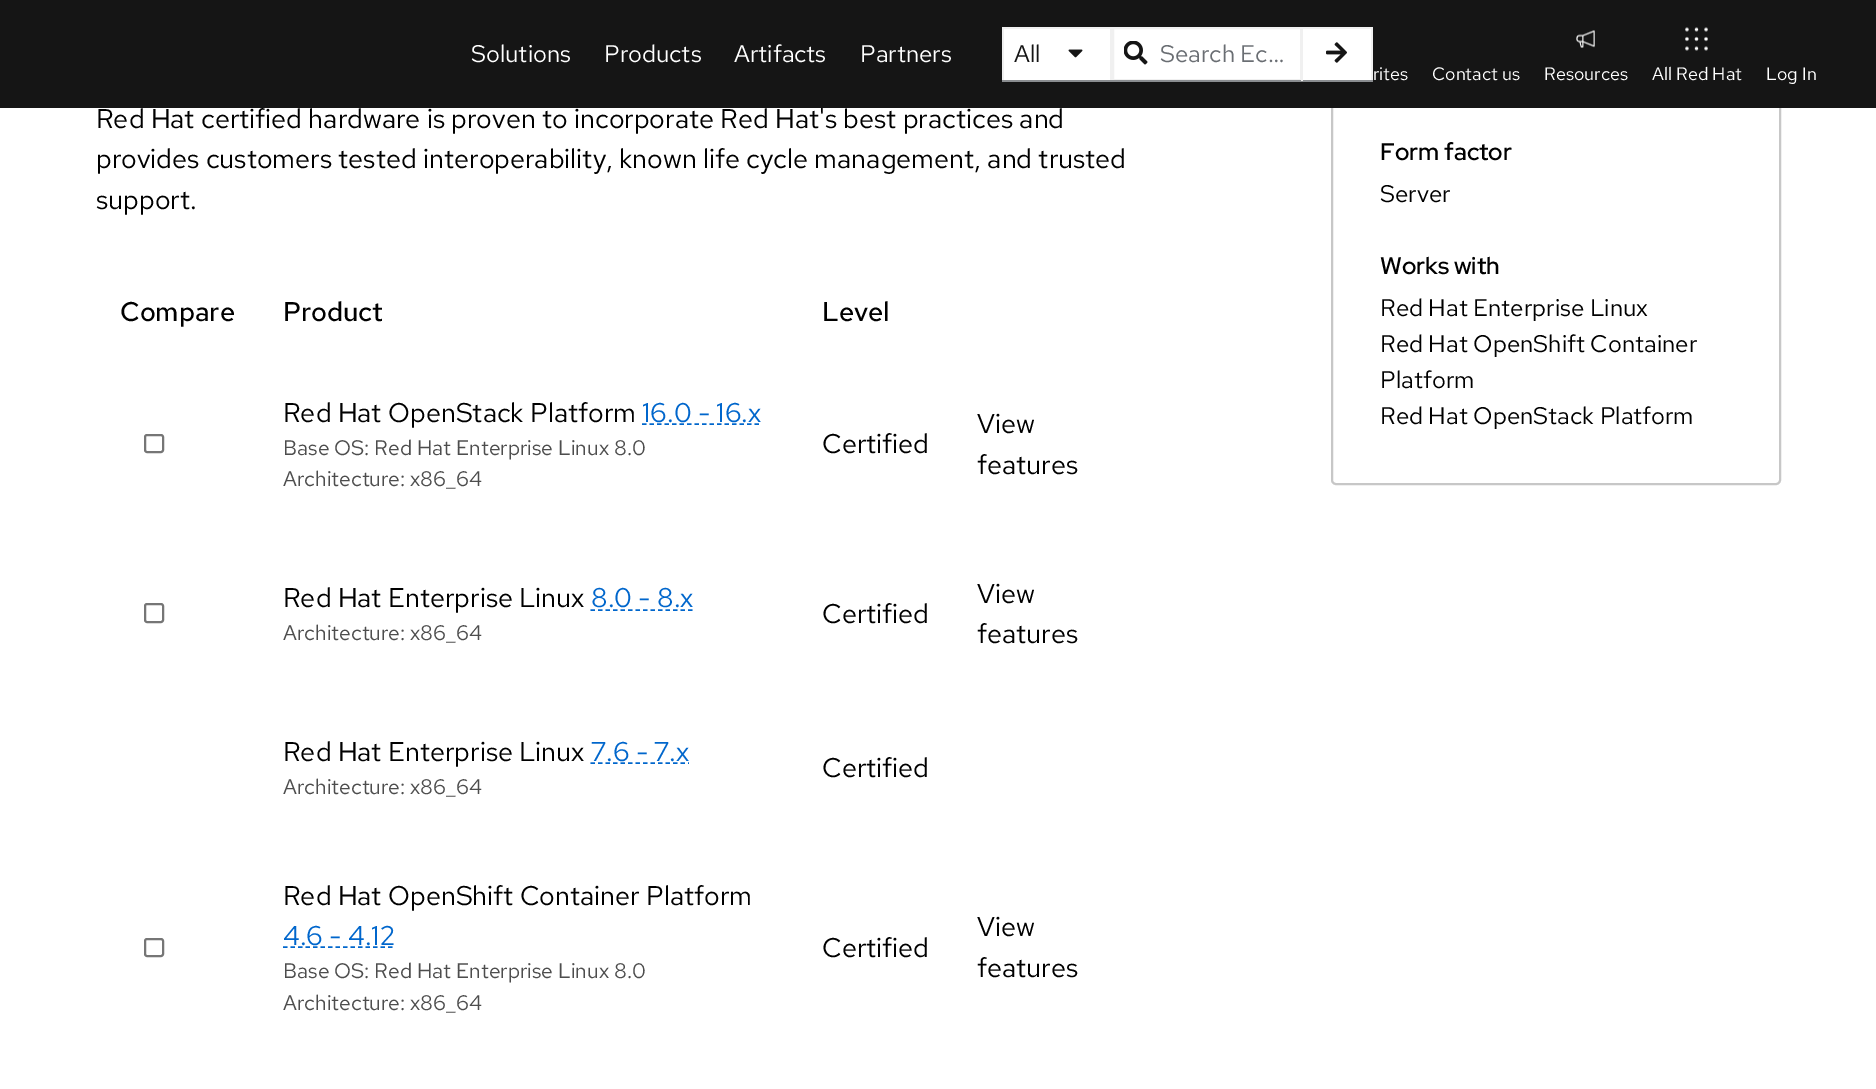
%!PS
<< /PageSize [1876 1089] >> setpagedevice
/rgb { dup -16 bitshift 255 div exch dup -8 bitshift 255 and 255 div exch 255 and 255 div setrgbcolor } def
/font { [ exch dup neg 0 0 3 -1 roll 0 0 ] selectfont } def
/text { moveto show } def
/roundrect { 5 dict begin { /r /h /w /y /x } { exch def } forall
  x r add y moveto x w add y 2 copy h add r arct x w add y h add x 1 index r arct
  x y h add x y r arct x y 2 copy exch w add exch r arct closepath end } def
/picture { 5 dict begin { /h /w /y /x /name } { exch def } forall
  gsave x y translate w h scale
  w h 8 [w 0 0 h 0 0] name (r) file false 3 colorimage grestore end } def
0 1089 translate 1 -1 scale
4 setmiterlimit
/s1 { /RedHatText-Regular 27 font 16#000000 rgb } def
/s2 { /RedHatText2-Regular 24 font 16#FFFFFF rgb } def
/s3 { /RedHatText2-Regular 24 font 16#151515 rgb } def
/s4 { /RedHatText2-Regular 24 font 16#6A6E73 rgb } def
/s5 { /RedHatText2-Regular 18 font 16#FFFFFF rgb } def
/s6 { /RedHatText-Medium 27 font 16#000000 rgb } def
/s7 { /RedHatText-Regular 27 font 16#0066CC rgb } def
/s8 { /RedHatText-Regular 21 font 16#4D4D4D rgb } def
/s9 { /RedHatDisplay-Medium 24 font 16#000000 rgb } def
/s10 { /RedHatText-Regular 24 font 16#000000 rgb } def
16#FFFFFF rgb
0 0 1876 1089 rectfill
s1
(Red Hat certified hardware is proven to incorporate Red Hat's best practices and) 96 128 text
16#C7C7C7 rgb
2 setlinewidth
1332 -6 448 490 4 roundrect stroke
16#151515 rgb
0 0 1876 108 rectfill
s2
(Solutions) 471 62 text
(Products) 604 62 text
(Artifacts) 734 62 text
(Partners) 860 62 text
1004 29 106 51 rectfill
16#F0F0F0 rgb
1002 27 110 2 rectfill
1110 27 2 54 rectfill
1002 27 2 54 rectfill
s3
(All) 1014 62 text
(pic1.raw) 1068 49 15 9 picture
16#8A8D90 rgb
1002 80 110 2 rectfill
16#FFFFFF rgb
1113 28 moveto 1301 28 lineto 1301 80 lineto 1113 80 lineto closepath gsave fill grestore
16#F0F0F0 rgb
stroke
(pic2.raw) 1124 41 24 24 picture
s4
(Search Ec…) 1160 62 text
16#8A8D90 rgb
1112 80 190 2 rectfill
16#FFFFFF rgb
1303 29 68 51 rectfill
16#F0F0F0 rgb
1301 27 72 2 rectfill
1371 27 2 54 rectfill
16#8A8D90 rgb
1301 80 72 2 rectfill
16#F0F0F0 rgb
1301 27 2 54 rectfill
(pic3.raw) 1326 42 21 21 picture
s5
(rites) 1373 80 text
(Contact us) 1432 80 text
(pic4.raw) 1576 30 19 18 picture
(Resources) 1544 80 text
(pic5.raw) 1685 27 23 24 picture
(All Red Hat) 1652 80 text
(Log In) 1766 80 text
s1
(provides customers tested interoperability, known life cycle management, and trusted) 96 168 text
(support.) 96 209 text
s6
(Compare) 120 321 text
(Product) 283 321 text
(Level) 822 321 text
16#767676 rgb
145 435 18 17 2 roundrect stroke
s1
(Red Hat OpenStack Platform) 283 422 text
s7
(16.0 - 16.x) 642 422 text
1.5 setlinewidth
[4.5 3] 0 setdash
642 424 moveto 761.5 424 lineto stroke
s8
(Base OS: Red Hat Enterprise Linux 8.0) 283 455 text
(Architecture: x86_64) 283 486 text
s1
(Certified) 822 453 text
(View) 977 433 text
(features) 977 474 text
16#767676 rgb
2 setlinewidth
[] 0 setdash
145 604 18 18 2 roundrect stroke
s1
(Red Hat Enterprise Linux) 283 607 text
s7
(8.0 - 8.x) 591 607 text
1.5 setlinewidth
[4.5 3] 0 setdash
590.5 610 moveto 693 610 lineto stroke
s8
(Architecture: x86_64) 283 640 text
s1
(Certified) 822 623 text
(View) 977 603 text
(features) 977 643 text
(Red Hat Enterprise Linux) 283 761 text
s7
(7.6 - 7.x) 591 761 text
590.5 763 moveto 689 763 lineto stroke
s8
(Architecture: x86_64) 283 794 text
s1
(Certified) 822 777 text
16#767676 rgb
2 setlinewidth
[] 0 setdash
145 939 18 17 2 roundrect stroke
s1
(Red Hat OpenShift Container Platform) 283 905 text
s7
(4.6 - 4.12) 283 945 text
1.5 setlinewidth
[4.5 3] 0 setdash
283 947 moveto 394.5 947 lineto stroke
s8
(Base OS: Red Hat Enterprise Linux 8.0) 283 978 text
(Architecture: x86_64) 283 1010 text
s1
(Certified) 822 957 text
(View) 977 936 text
(features) 977 977 text
s9
(Form factor) 1380 160 text
s10
(Server) 1380 202 text
s9
(Works with) 1380 274 text
s10
(Red Hat Enterprise Linux) 1380 316 text
(Red Hat OpenShift Container) 1380 352 text
(Platform) 1380 388 text
(Red Hat OpenStack Platform) 1380 424 text
showpage
